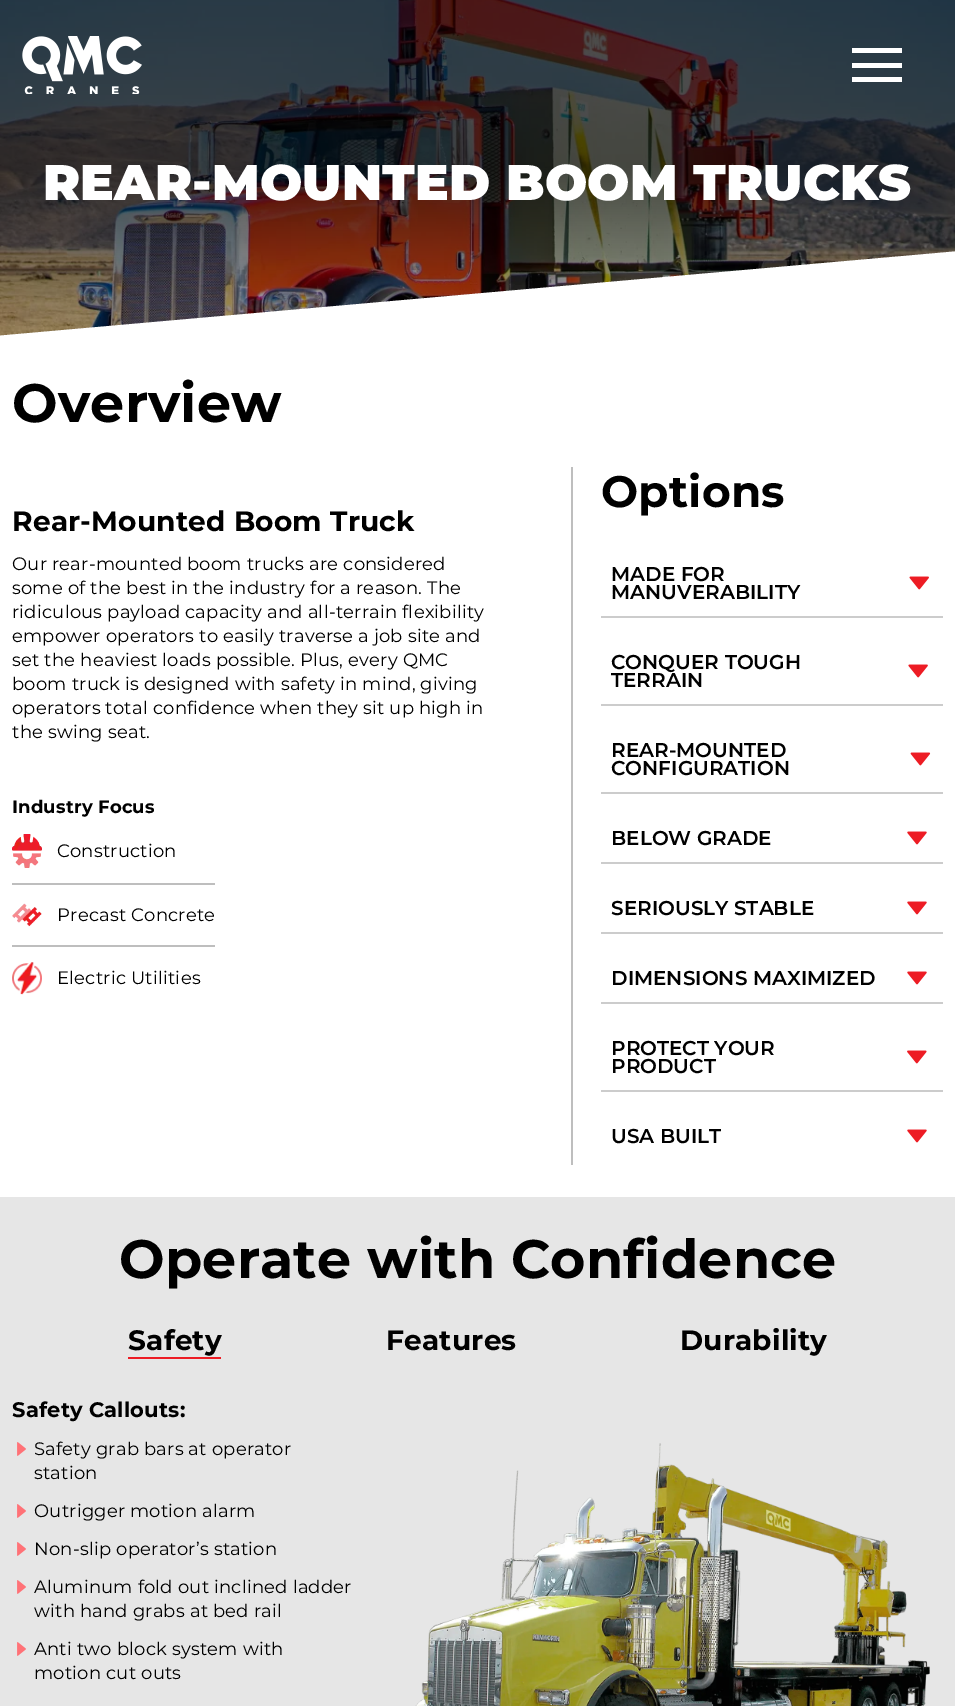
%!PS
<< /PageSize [955 1706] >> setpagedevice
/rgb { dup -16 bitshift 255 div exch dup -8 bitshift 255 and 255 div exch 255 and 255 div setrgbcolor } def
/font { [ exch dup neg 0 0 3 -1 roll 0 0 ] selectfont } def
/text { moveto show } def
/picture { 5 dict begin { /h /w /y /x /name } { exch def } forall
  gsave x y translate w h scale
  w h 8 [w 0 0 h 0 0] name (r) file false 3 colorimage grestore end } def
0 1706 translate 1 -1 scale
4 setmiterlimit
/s1 { /Montserrat-SemiBold 20 font 16#000000 rgb } def
16#FFFFFF rgb
0 0 955 1706 rectfill
(pic2.raw) 0 0 955 336 picture
(pic1.raw) 22 36 120 58 picture
852 48 50 5 rectfill
852 63 50 5 rectfill
852 77 50 5 rectfill
/Montserrat-Black 50 font
43 200 moveto 0.2 0 (REAR-MOUNTED BOOM TRUCKS) ashow
gsave
0 0 955 341 rectclip
-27 338 moveto 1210 229 lineto 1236 528 lineto -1 636 lineto closepath fill
grestore
/Montserrat-Bold 54 font
16#000000 rgb
12 422 moveto 0.2 0 (Overview) ashow
/Montserrat-Bold 28 font
12 531 moveto 0.2 0 (Rear-Mounted Boom Truck) ashow
/Montserrat-Regular 18 font
12 570 moveto 0.2 0 (Our rear-mounted boom trucks are considered) ashow
12 594 moveto 0.2 0 (some of the best in the industry for a reason. The) ashow
12 618 moveto 0.2 0 (ridiculous payload capacity and all-terrain flexibility) ashow
12 642 moveto 0.2 0 (empower operators to easily traverse a job site and) ashow
12 666 moveto 0.2 0 (set the heaviest loads possible. Plus, every QMC) ashow
12 690 moveto 0.2 0 (boom truck is designed with safety in mind, giving) ashow
12 714 moveto 0.2 0 (operators total confidence when they sit up high in) ashow
12 738 moveto 0.2 0 (the swing seat.) ashow
/Montserrat-Bold 18 font
12 813 moveto 0.2 0 (Industry Focus) ashow
(pic3.raw) 12 834 30 34 picture
/Montserrat-Regular 18 font
57 857 moveto 0.2 0 (Construction) ashow
16#BEBEBE rgb
12 883 203 2 rectfill
(pic4.raw) 12 903 30 24 picture
16#000000 rgb
57 921 moveto 0.2 0 (Precast Concrete) ashow
16#BEBEBE rgb
12 945 203 2 rectfill
(pic5.raw) 12 962 30 33 picture
16#000000 rgb
57 984 moveto 0.2 0 (Electric Utilities) ashow
16#BEBEBE rgb
571 467 2 698 rectfill
/Montserrat-Bold 44 font
16#000000 rgb
601 507 moveto 0.2 0 (Options) ashow
16#CCCCCC rgb
601 616 342 2 rectfill
s1
(MADE FOR) 611 581 text
(MANUVERABILITY) 611 599 text
(pic6.raw) 909 576 20 14 picture
16#CCCCCC rgb
601 704 342 2 rectfill
s1
(CONQUER TOUGH) 611 669 text
(TERRAIN) 611 687 text
(pic7.raw) 908 664 20 14 picture
16#CCCCCC rgb
601 792 342 2 rectfill
s1
(REAR-MOUNTED) 611 757 text
(CONFIGURATION) 611 775 text
(pic8.raw) 910 752 21 14 picture
16#CCCCCC rgb
601 862 342 2 rectfill
s1
(BELOW GRADE) 611 845 text
(pic9.raw) 907 831 20 14 picture
16#CCCCCC rgb
601 932 342 2 rectfill
s1
(SERIOUSLY STABLE) 611 915 text
(pic9.raw) 907 901 20 14 picture
16#CCCCCC rgb
601 1002 342 2 rectfill
s1
(DIMENSIONS MAXIMIZED) 611 985 text
(pic9.raw) 907 971 20 14 picture
16#CCCCCC rgb
601 1090 342 2 rectfill
s1
(PROTECT YOUR) 611 1055 text
(PRODUCT) 611 1073 text
(pic10.raw) 907 1050 20 14 picture
(USA BUILT) 611 1143 text
(pic9.raw) 907 1129 20 14 picture
16#E6E6E6 rgb
0 1197 955 509 rectfill
/Montserrat-Bold 54 font
16#000000 rgb
119 1278 moveto 0.2 0 (Operate with Confidence) ashow
/Montserrat-Bold 28 font
128 1350 moveto 0.2 0 (Safety) ashow
16#ED1C24 rgb
128 1357 93 2 rectfill
16#000000 rgb
386 1350 moveto 0.2 0 (Features) ashow
680 1350 moveto 0.2 0 (Durability) ashow
/Montserrat-Bold 21 font
12 1417 moveto 0.2 0 (Safety Callouts:) ashow
(pic11.raw) 17 1442 9 14 picture
/Montserrat-Regular 18 font
34 1455 moveto 0.2 0 (Safety grab bars at operator) ashow
34 1479 moveto 0.2 0 (station) ashow
(pic11.raw) 17 1504 9 14 picture
34 1517 moveto 0.2 0 (Outrigger motion alarm) ashow
(pic11.raw) 17 1542 9 14 picture
34 1555 moveto 0.2 0 (Non-slip operator’s station) ashow
(pic11.raw) 17 1580 9 14 picture
34 1593 moveto 0.2 0 (Aluminum fold out inclined ladder) ashow
34 1617 moveto 0.2 0 (with hand grabs at bed rail) ashow
(pic11.raw) 17 1642 9 14 picture
34 1655 moveto 0.2 0 (Anti two block system with) ashow
34 1679 moveto 0.2 0 (motion cut outs) ashow
(pic12.raw) 415 1443 515 263 picture
showpage
